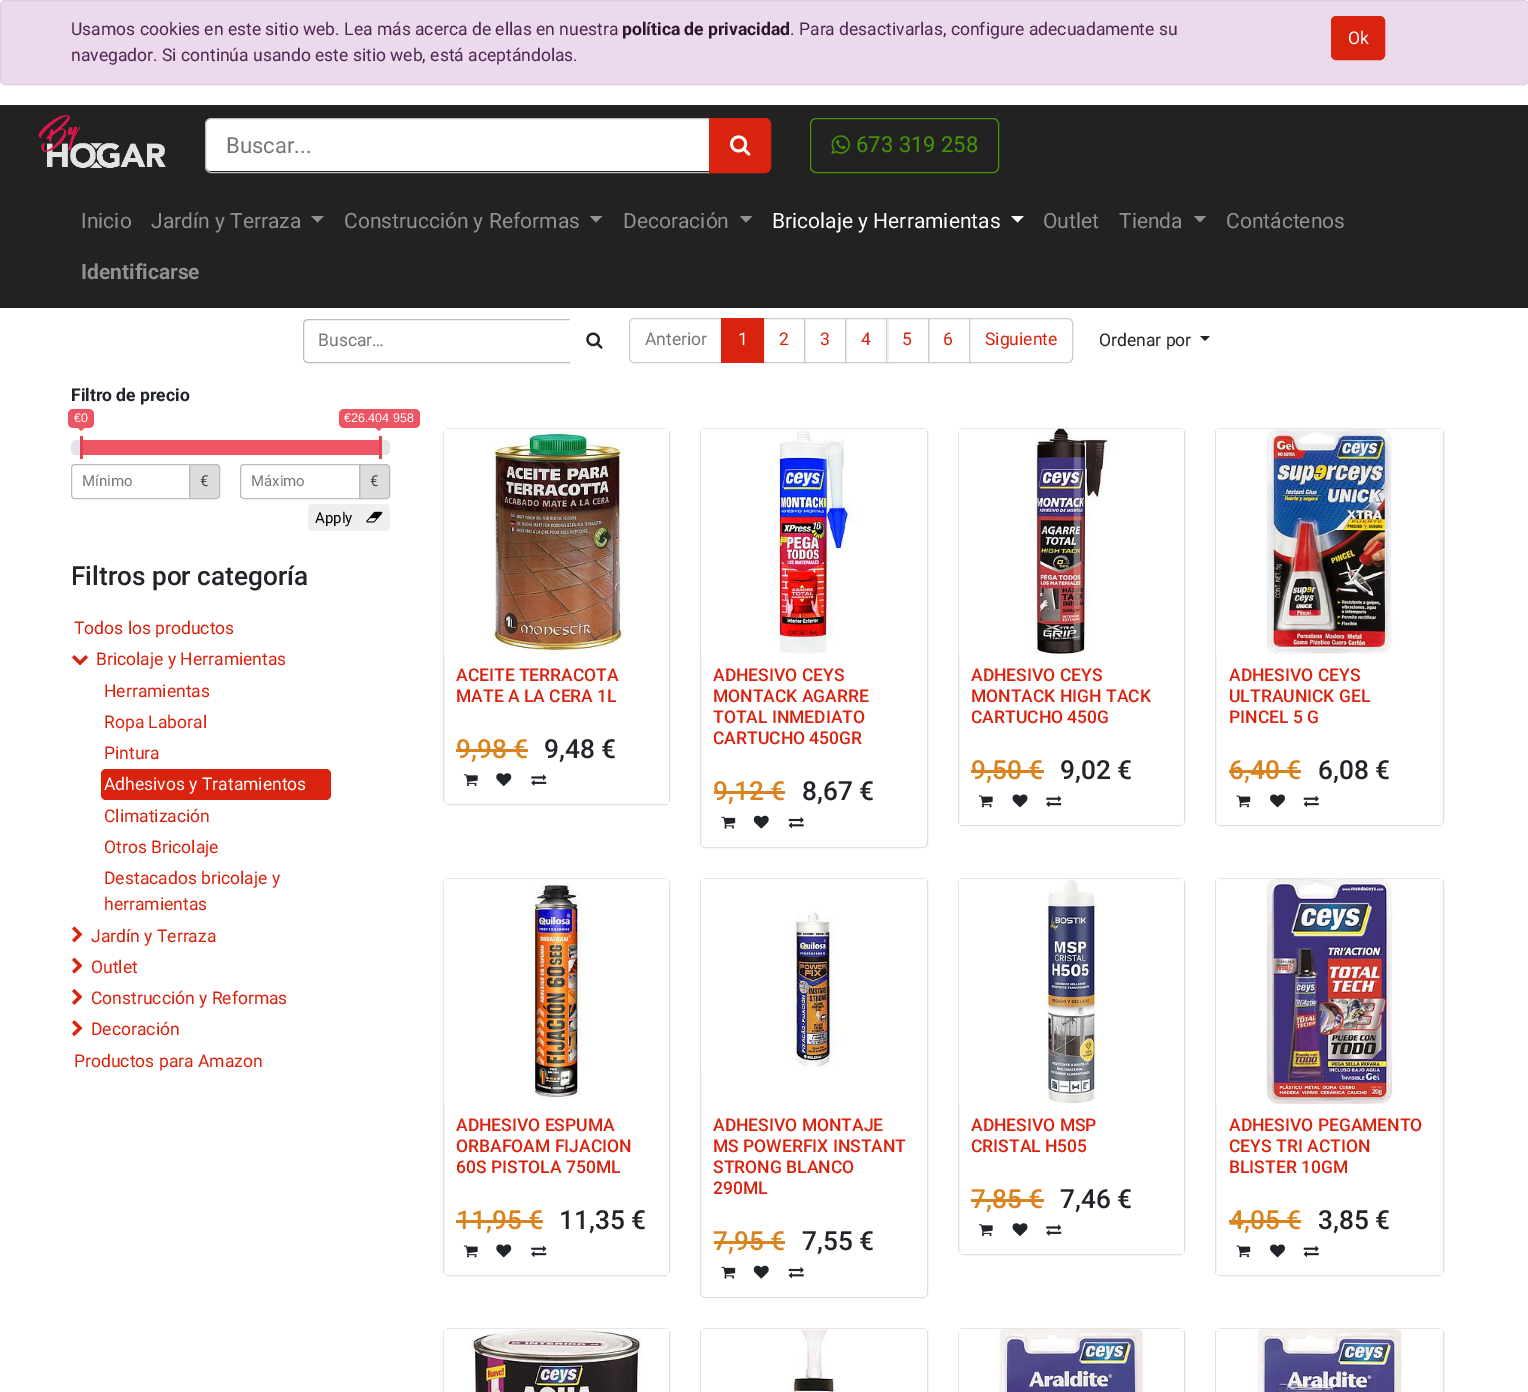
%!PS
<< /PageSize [1528 1392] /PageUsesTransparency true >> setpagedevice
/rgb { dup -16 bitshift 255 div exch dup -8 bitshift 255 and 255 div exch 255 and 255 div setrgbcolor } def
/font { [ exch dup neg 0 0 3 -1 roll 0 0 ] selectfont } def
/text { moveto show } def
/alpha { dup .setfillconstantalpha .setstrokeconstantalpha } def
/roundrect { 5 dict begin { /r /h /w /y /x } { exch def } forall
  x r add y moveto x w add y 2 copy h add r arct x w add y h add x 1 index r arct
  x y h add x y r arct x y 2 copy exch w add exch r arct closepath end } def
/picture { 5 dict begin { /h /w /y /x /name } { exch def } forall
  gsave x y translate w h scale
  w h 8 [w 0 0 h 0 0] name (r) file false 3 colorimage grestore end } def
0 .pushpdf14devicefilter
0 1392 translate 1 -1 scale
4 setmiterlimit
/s1 { /Roboto-Regular 17.5 font 16#512553 rgb } def
/s2 { /Roboto-Bold 17.5 font 16#2F1530 rgb } def
/s3 { /Roboto-Regular 17.5 font 16#FFFFFF rgb } def
/s4 { /Roboto-Regular 22 font 16#777777 rgb } def
/s5 { /Roboto-Regular 22 font 16#469408 rgb } def
/s6 { /Roboto-Regular 21 font 16#919191 rgb } def
/s7 { /Roboto-Regular 21 font 16#FFFFFF rgb } def
/s8 { /Roboto-Bold 21 font 16#919191 rgb } def
/s9 { /Roboto-Regular 17.5 font 16#777777 rgb } def
/s10 { /Roboto-Regular 17.5 font 16#D9230F rgb } def
/s11 { /Roboto-Regular 17.5 font 16#212529 rgb } def
/s12 { /Roboto-Bold 17.5 font 16#212529 rgb } def
/s13 { /LiberationSans-Regular 12.5 font 16#FFFFFF rgb } def
/s14 { /Roboto-Regular 15 font 16#777777 rgb } def
/s15 { /Roboto-Regular 15 font 16#444444 rgb } def
/s16 { /Roboto-Regular 15 font 16#000000 rgb } def
/s17 { /Roboto-Medium 26.25 font 16#212529 rgb } def
/s18 { /Roboto-Medium 17.5 font 16#D9230F rgb } def
/s19 { /Roboto-Medium 26.25 font 16#D9831F rgb } def
16#FFFFFF rgb
0 0 1528 1392 rectfill
16#EBDAEC rgb
0.5 0.5 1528 84 4.5 roundrect gsave fill grestore
16#E3CBE4 rgb
stroke
s1
(Usamos cookies en este sitio web. Lea más acerca de ellas en nuestra) 71 35 text
s2
(política de privacidad) 622 35 text
s1
(. Para desactivarlas, configure adecuadamente su) 790 35 text
(navegador. Si continúa usando este sitio web, está aceptándolas.) 71 61 text
16#D9230F rgb
1331.5 16.5 53 43 4.5 roundrect gsave fill grestore
stroke
s3
(Ok) 1348 44 text
16#222222 rgb
0 105 1528 203 rectfill
(pic1.raw) 38 115 128 55 picture
16#FFFFFF rgb
211 119 moveto 709 119 lineto 709 171 lineto 211 171 lineto 208 171 206 169 206 166 curveto 206 124 lineto 206 121 208 119 211 119 curveto closepath fill
16#BBBBBB rgb
211 118.5 moveto 709.5 118.5 lineto 709.5 172.5 lineto 211 172.5 lineto 208 172.5 205.5 170 205.5 167 curveto 205.5 124 lineto 205.5 121 208 118.5 211 118.5 curveto closepath stroke
s4
(Buscar...) 226 153 text
16#D9230F rgb
709.5 118.5 moveto 765 118.5 lineto 768 118.5 770.5 121 770.5 124 curveto 770.5 167 lineto 770.5 170 768 172.5 765 172.5 curveto 709.5 172.5 lineto closepath gsave fill grestore
stroke
(pic2.raw) 730 135 21 21 picture
16#469408 rgb
810.5 118.5 188 54 5.5 roundrect stroke
(pic3.raw) 831 135 19 19 picture
(673 319 258) 856 152 text
s6
(Inicio) 81 228 text
(Jardín y Terraza) 151 228 text
311 216 moveto 324 216 lineto 317.5 222.5 lineto closepath fill
(Construcción y Reformas) 344 228 text
590 216 moveto 602.5 216 lineto 596 222.5 lineto closepath fill
(Decoración) 623 228 text
740 216 moveto 752.5 216 lineto 746 222.5 lineto closepath fill
s7
(Bricolaje y Herramientas) 772 228 text
1011 216 moveto 1024 216 lineto 1017.5 222.5 lineto closepath fill
s6
(Outlet) 1043 228 text
(Tienda) 1119 228 text
1194 216 moveto 1206 216 lineto 1200 222.5 lineto closepath fill
(Contáctenos) 1226 228 text
s8
(Identificarse) 81 279 text
16#BBBBBB rgb
308 319.5 moveto 570.5 319.5 lineto 570.5 362.5 lineto 308 362.5 lineto 305.5 362.5 303.5 360.5 303.5 358 curveto 303.5 324 lineto 303.5 321.5 305.5 319.5 308 319.5 curveto closepath stroke
s9
(Buscar…) 318 346 text
16#FFFFFF rgb
570 319 moveto 614 319 lineto 617 319 619 321 619 324 curveto 619 358 lineto 619 361 617 363 614 363 curveto 570 363 lineto closepath fill
(pic4.raw) 586 332 17 17 picture
16#CCCCCC rgb
634 318.5 moveto 722.5 318.5 lineto 722.5 362.5 lineto 634 362.5 lineto 631.5 362.5 629.5 360.5 629.5 358 curveto 629.5 323 lineto 629.5 320.5 631.5 318.5 634 318.5 curveto closepath stroke
s9
(Anterior) 645 345 text
16#CCCCCC rgb
763.5 318.5 41 44 rectstroke
16#D9230F rgb
721 318 43 45 rectfill
s3
(1) 738 345 text
s10
(2) 779 345 text
16#CCCCCC rgb
804.5 318.5 41 44 rectstroke
s10
(3) 820 345 text
16#CCCCCC rgb
845.5 318.5 42 44 rectstroke
s10
(4) 861 345 text
16#FFFFFF rgb
887 319 1 43 rectfill
16#CCCCCC rgb
886.5 318.5 42 44 rectstroke
s10
(5) 902 345 text
16#CCCCCC rgb
928.5 318.5 41 44 rectstroke
s10
(6) 943 345 text
16#FFFFFF rgb
969.5 318.5 moveto 1068 318.5 lineto 1070.5 318.5 1072.5 320.5 1072.5 323 curveto 1072.5 358 lineto 1072.5 360.5 1070.5 362.5 1068 362.5 curveto 969.5 362.5 lineto closepath gsave fill grestore
16#CCCCCC rgb
stroke
s10
(Siguiente) 985 345 text
s11
(Ordenar por) 1099 346 text
1200 336 moveto 1210 336 lineto 1205 341 lineto closepath fill
s12
(Filtro de precio) 71 401 text
16#ED5565 rgb
68 409 26 19 5 roundrect fill
s13
(€0) 74 422 text
16#ED5565 rgb
77.5 427.5 moveto 85 427.5 lineto 81 431 lineto closepath fill
339 409 81 19 5 roundrect fill
s13
(€26.404 958) 344 422 text
16#ED5565 rgb
375 427.5 moveto 382.5 427.5 lineto 379 431 lineto closepath fill
16#E1E4E9 rgb
71 440 319 15 5 roundrect fill
16#DA4453 rgb
80 436 3 23 rectfill
16#ED5565 rgb
83 440 296 15 rectfill
16#DA4453 rgb
379 436 3 23 rectfill
16#DDDDDD rgb
189.5 464.5 moveto 216 464.5 lineto 218 464.5 219.5 466 219.5 468 curveto 219.5 495 lineto 219.5 497 218 498.5 216 498.5 curveto 189.5 498.5 lineto closepath gsave fill grestore
16#BBBBBB rgb
stroke
75 464.5 moveto 189.5 464.5 lineto 189.5 498.5 lineto 75 498.5 lineto 73 498.5 71.5 497 71.5 495 curveto 71.5 468 lineto 71.5 466 73 464.5 75 464.5 curveto closepath stroke
s14
(Mínimo) 82 486 text
s15
(€) 200 486 text
16#DDDDDD rgb
359.5 464.5 moveto 386 464.5 lineto 388 464.5 389.5 466 389.5 468 curveto 389.5 495 lineto 389.5 497 388 498.5 386 498.5 curveto 359.5 498.5 lineto closepath gsave fill grestore
16#BBBBBB rgb
stroke
244 464.5 moveto 359.5 464.5 lineto 359.5 498.5 lineto 244 498.5 lineto 242 498.5 240.5 497 240.5 495 curveto 240.5 468 lineto 240.5 466 242 464.5 244 464.5 curveto closepath stroke
s14
(Máximo) 251 486 text
s15
(€) 370 486 text
16#EFEFEF rgb
312 504 moveto 360 504 lineto 360 531 lineto 312 531 lineto 310 531 308 529 308 527 curveto 308 508 lineto 308 506 310 504 312 504 curveto closepath fill
s16
(Apply) 315 523 text
16#EFEFEF rgb
359 504 moveto 386 504 lineto 388 504 390 506 390 508 curveto 390 527 lineto 390 529 388 531 386 531 curveto 359 531 lineto closepath fill
(pic5.raw) 366 511 17 12 picture
s17
(Filtros por categoría) 71 585 text
s10
(Todos los productos) 74 634 text
(pic6.raw) 72 655 16 11 picture
(Bricolaje y Herramientas) 96 665 text
(Herramientas) 104 697 text
(Ropa Laboral) 104 728 text
(Pintura) 104 759 text
101 769 230 31 5 roundrect fill
s3
(Adhesivos y Tratamientos) 104 790 text
s10
(Climatización) 104 822 text
(Otros Bricolaje) 104 853 text
(Destacados bricolaje y) 104 884 text
(herramientas) 104 910 text
(pic7.raw) 72 926 11 17 picture
(Jardín y Terraza) 91 942 text
(pic8.raw) 72 957 11 17 picture
(Outlet) 91 973 text
(pic9.raw) 72 989 11 16 picture
(Construcción y Reformas) 91 1004 text
(pic10.raw) 72 1020 11 16 picture
(Decoración) 91 1035 text
(Productos para Amazon) 74 1067 text
16#DFDFDF rgb
443.5 428.5 226 376 4.5 roundrect stroke
(pic11.raw) 443 428 226 226 picture
0.75 alpha
16#FFFFFF rgb
444 801 225 3 rectfill
1 alpha
s18
(ACEITE TERRACOTA) 456 681 text
(MATE A LA CERA 1L) 456 702 text
s19
(9,98 €) 456 758 text
456 749 72 3 rectfill
s17
(9,48 €) 544 758 text
(pic12.raw) 463 774 15 13 picture
(pic13.raw) 496 773 16 13 picture
(pic14.raw) 531 774 16 12 picture
16#DFDFDF rgb
700.5 428.5 227 419 4.5 roundrect stroke
(pic15.raw) 701 428 226 226 picture
0.75 alpha
16#FFFFFF rgb
701 844 1 2 rectfill
1 alpha
s18
(ADHESIVO CEYS) 713 681 text
(MONTACK AGARRE) 713 702 text
(TOTAL INMEDIATO) 713 723 text
(CARTUCHO 450GR) 713 744 text
s19
(9,12 €) 713 800 text
714 791 71 3 rectfill
s17
(8,67 €) 802 800 text
(pic16.raw) 721 816 15 13 picture
(pic17.raw) 753 815 16 14 picture
(pic18.raw) 788 817 16 12 picture
16#DFDFDF rgb
958.5 428.5 226 397 4.5 roundrect stroke
(pic19.raw) 958 428 226 226 picture
0.75 alpha
16#FFFFFF rgb
959 822 225 3 rectfill
1 alpha
s18
(ADHESIVO CEYS) 971 681 text
(MONTACK HIGH TACK) 971 702 text
(CARTUCHO 450G) 971 723 text
s19
(9,50 €) 971 779 text
971 770 73 3 rectfill
s17
(9,02 €) 1060 779 text
(pic20.raw) 978 795 15 13 picture
(pic21.raw) 1012 794 16 14 picture
(pic22.raw) 1046 795 16 12 picture
16#DFDFDF rgb
1215.5 428.5 228 397 4.5 roundrect stroke
(pic23.raw) 1216 428 227 226 picture
0.75 alpha
16#FFFFFF rgb
1216 822 227 3 rectfill
1 alpha
s18
(ADHESIVO CEYS) 1229 681 text
(ULTRAUNICK GEL) 1229 702 text
(PINCEL 5 G) 1229 723 text
s19
(6,40 €) 1229 779 text
1229 770 72 3 rectfill
s17
(6,08 €) 1318 779 text
(pic24.raw) 1236 795 15 13 picture
(pic25.raw) 1270 794 15 14 picture
(pic26.raw) 1303 795 16 12 picture
16#DFDFDF rgb
443.5 878.5 226 397 4.5 roundrect stroke
(pic27.raw) 443 878 226 226 picture
0.75 alpha
16#FFFFFF rgb
444 1272 225 3 rectfill
1 alpha
s18
(ADHESIVO ESPUMA) 456 1131 text
(ORBAFOAM FIJACION) 456 1152 text
(60S PISTOLA 750ML) 456 1173 text
s19
(11,95 €) 456 1229 text
456 1220 87 3 rectfill
s17
(11,35 €) 559 1229 text
(pic20.raw) 463 1245 15 13 picture
(pic28.raw) 496 1244 16 14 picture
(pic22.raw) 531 1245 16 12 picture
16#DFDFDF rgb
700.5 878.5 227 419 4.5 roundrect stroke
(pic29.raw) 701 878 226 192 picture
0.75 alpha
16#FFFFFF rgb
701 1294 1 2 rectfill
1 alpha
s18
(ADHESIVO MONTAJE) 713 1131 text
(MS POWERFIX INSTANT) 713 1152 text
(STRONG BLANCO) 713 1173 text
(290ML) 713 1194 text
s19
(7,95 €) 713 1250 text
714 1241 71 3 rectfill
s17
(7,55 €) 802 1250 text
(pic16.raw) 721 1266 15 13 picture
(pic17.raw) 753 1265 16 14 picture
(pic18.raw) 788 1267 16 12 picture
16#DFDFDF rgb
958.5 878.5 226 376 4.5 roundrect stroke
(pic30.raw) 958 878 226 226 picture
0.75 alpha
16#FFFFFF rgb
959 1251 225 3 rectfill
1 alpha
s18
(ADHESIVO MSP) 971 1131 text
(CRISTAL H505) 971 1152 text
s19
(7,85 €) 971 1208 text
971 1199 73 3 rectfill
s17
(7,46 €) 1060 1208 text
(pic12.raw) 978 1224 15 13 picture
(pic31.raw) 1012 1223 16 13 picture
(pic14.raw) 1046 1224 16 12 picture
16#DFDFDF rgb
1215.5 878.5 228 397 4.5 roundrect stroke
(pic32.raw) 1216 878 227 226 picture
0.75 alpha
16#FFFFFF rgb
1216 1272 227 3 rectfill
1 alpha
s18
(ADHESIVO PEGAMENTO) 1229 1131 text
(CEYS TRI ACTION) 1229 1152 text
(BLISTER 10GM) 1229 1173 text
s19
(4,05 €) 1229 1229 text
1229 1220 72 3 rectfill
s17
(3,85 €) 1318 1229 text
(pic24.raw) 1236 1245 15 13 picture
(pic25.raw) 1270 1244 15 14 picture
(pic26.raw) 1303 1245 16 12 picture
16#DFDFDF rgb
443.5 1328.5 226 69 4.5 roundrect stroke
(pic33.raw) 443 1328 226 64 picture
700.5 1328.5 227 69 4.5 roundrect stroke
(pic34.raw) 701 1328 226 64 picture
958.5 1328.5 226 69 4.5 roundrect stroke
(pic35.raw) 958 1328 226 64 picture
1215.5 1328.5 228 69 4.5 roundrect stroke
(pic36.raw) 1216 1328 227 64 picture
.poppdf14devicefilter showpage
